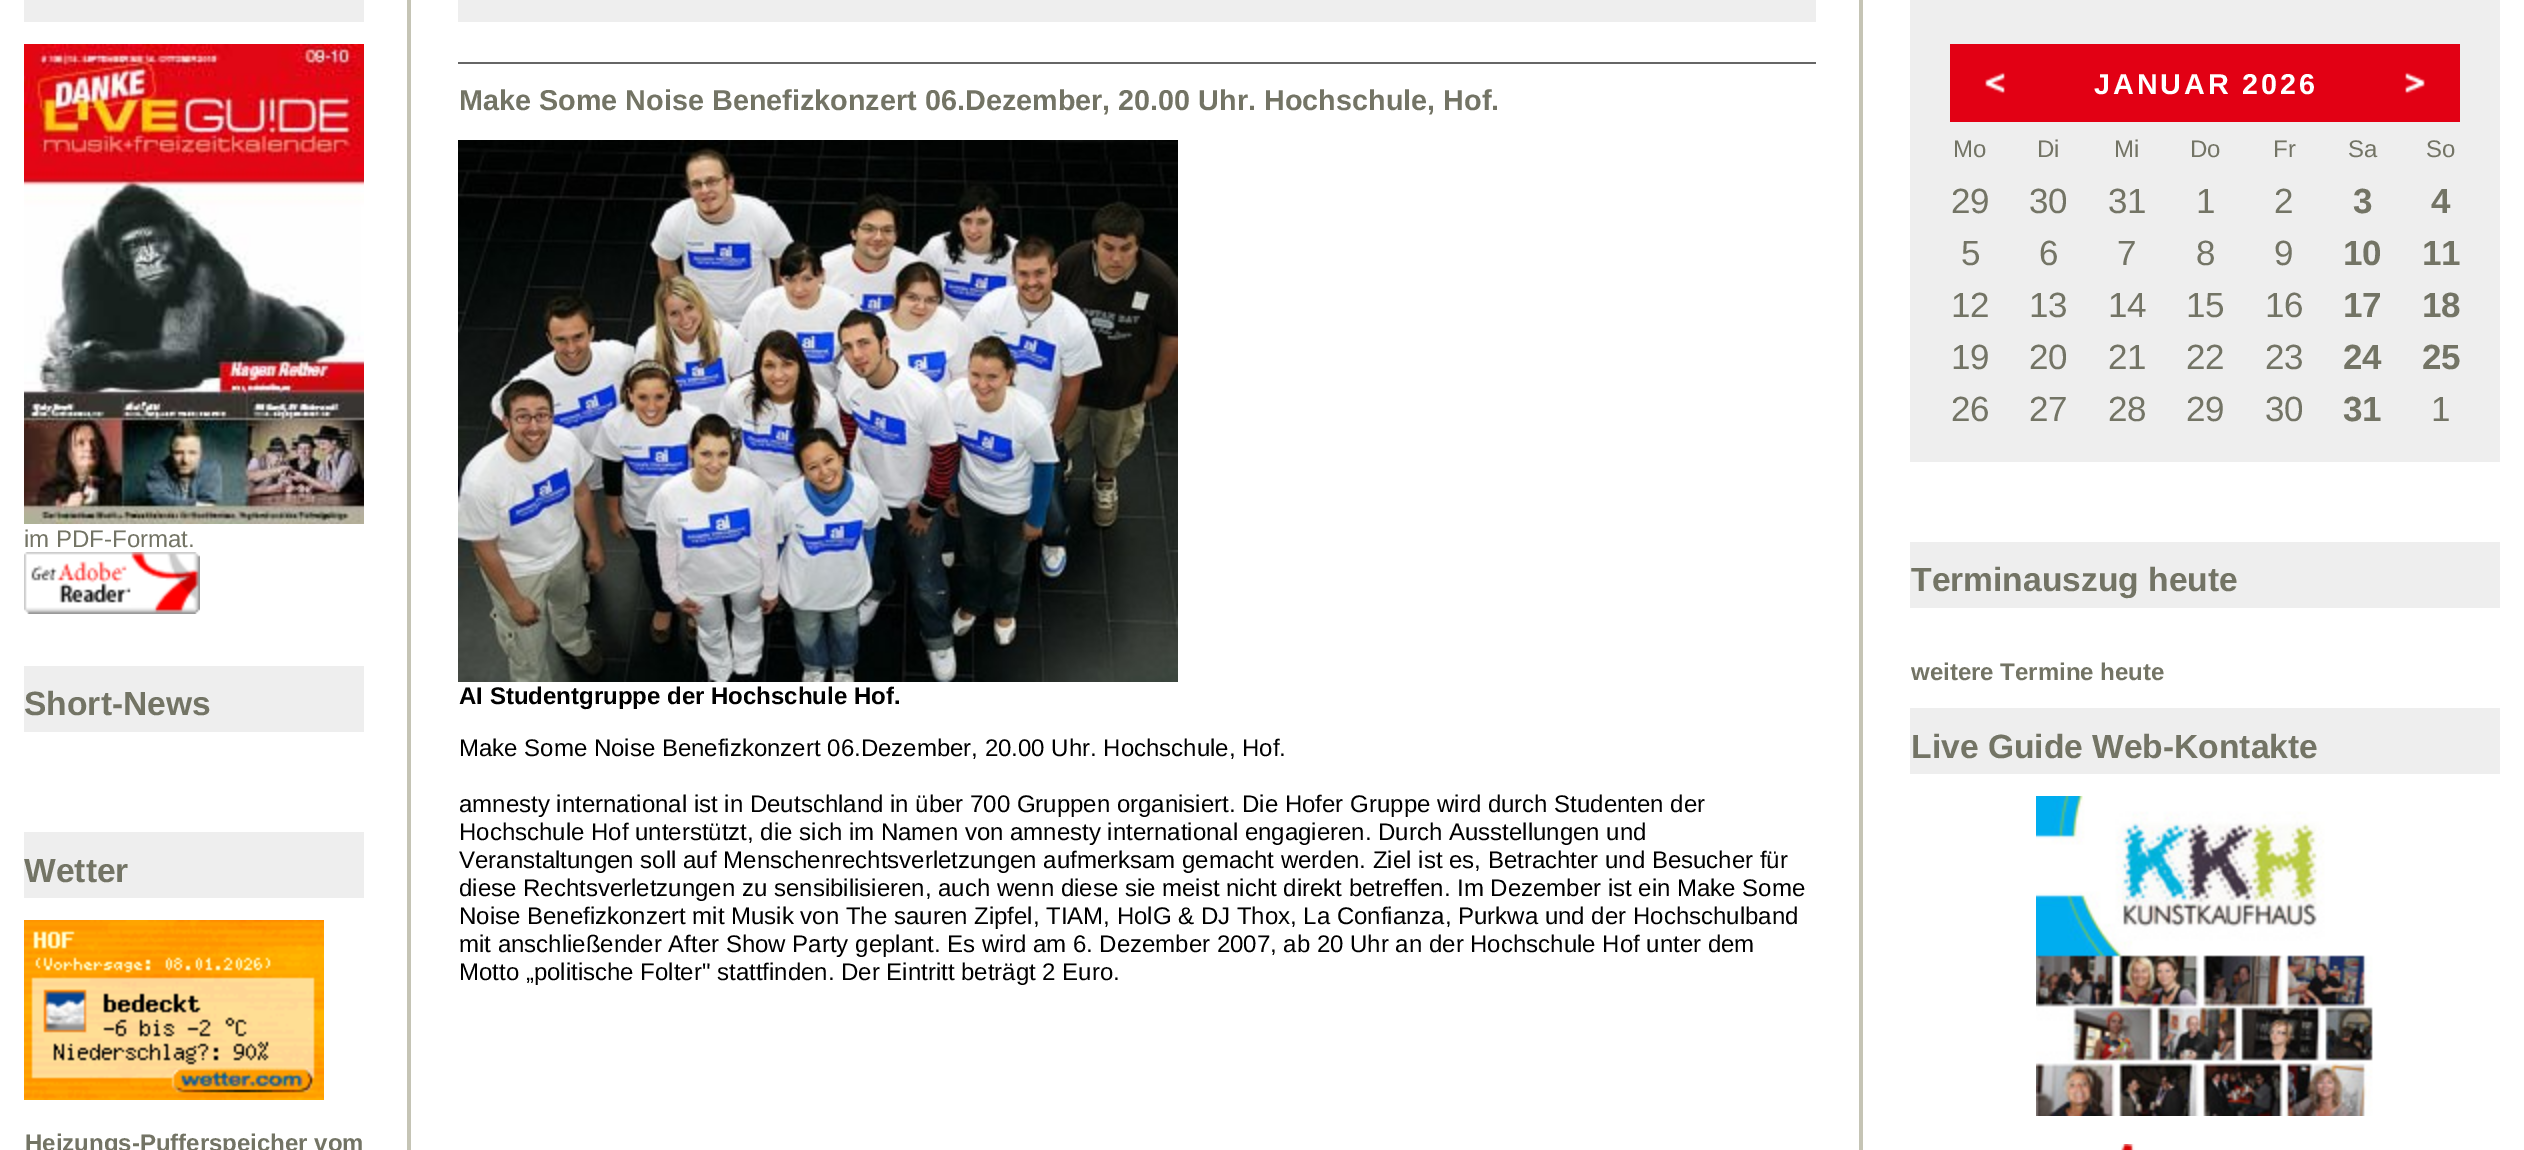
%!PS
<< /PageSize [2524 1150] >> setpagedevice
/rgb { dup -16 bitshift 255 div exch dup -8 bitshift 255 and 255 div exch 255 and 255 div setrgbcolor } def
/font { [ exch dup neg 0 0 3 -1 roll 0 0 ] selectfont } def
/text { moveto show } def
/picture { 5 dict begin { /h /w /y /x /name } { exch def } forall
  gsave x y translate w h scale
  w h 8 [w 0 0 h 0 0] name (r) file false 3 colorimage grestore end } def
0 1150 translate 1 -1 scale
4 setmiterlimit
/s1 { /LiberationSans-Regular 24 font 16#737465 rgb } def
/s2 { /LiberationSans-Bold 33.6 font 16#737465 rgb } def
/s3 { /LiberationSans-Bold 24 font 16#737465 rgb } def
/s4 { /LiberationSans-Bold 28.8 font 16#737465 rgb } def
/s5 { /LiberationSans-Bold 24 font 16#000000 rgb } def
/s6 { /LiberationSans-Regular 24 font 16#000000 rgb } def
/s7 { /LiberationSans-Regular 35 font 16#737465 rgb } def
/s8 { /LiberationSans-Bold 35 font 16#737465 rgb } def
16#FFFFFF rgb
0 0 2524 1150 rectfill
16#EEEEEE rgb
24 0 340 22 rectfill
(pic1.raw) 24 44 340 480 picture
s1
(im PDF-Format.) 24 547 text
(pic2.raw) 24 552 176 62 picture
16#EEEEEE rgb
24 666 340 66 rectfill
s2
(Short-News) 24 715 text
16#EEEEEE rgb
24 832 340 66 rectfill
s2
(Wetter) 24 882 text
(pic3.raw) 24 920 300 180 picture
s3
(Heizungs-Pufferspeicher vom) 25 1151 text
16#C5C4B5 rgb
407 0 4 1150 rectfill
16#EEEEEE rgb
458 0 1358 22 rectfill
16#666666 rgb
458 62 1358 2 rectfill
s4
(Make Some Noise Benefizkonzert 06.Dezember, 20.00 Uhr. Hochschule, Hof.) 459 110 text
(pic4.raw) 458 140 720 542 picture
s5
(AI Studentgruppe der Hochschule Hof.) 459 704 text
s6
(Make Some Noise Benefizkonzert 06.Dezember, 20.00 Uhr. Hochschule, Hof.) 459 756 text
(amnesty international ist in Deutschland in über 700 Gruppen organisiert. Die Hofer Gruppe wird durch Studenten der) 459 812 text
(Hochschule Hof unterstützt, die sich im Namen von amnesty international engagieren. Durch Ausstellungen und) 459 840 text
(Veranstaltungen soll auf Menschenrechtsverletzungen aufmerksam gemacht werden. Ziel ist es, Betrachter und Besucher für) 459 868 text
(diese Rechtsverletzungen zu sensibilisieren, auch wenn diese sie meist nicht direkt betreffen. Im Dezember ist ein Make Some) 459 896 text
(Noise Benefizkonzert mit Musik von The sauren Zipfel, TIAM, HolG & DJ Thox, La Confianza, Purkwa und der Hochschulband) 459 924 text
(mit anschließender After Show Party geplant. Es wird am 6. Dezember 2007, ab 20 Uhr an der Hochschule Hof unter dem) 459 952 text
(Motto „politische Folter" stattfinden. Der Eintritt beträgt 2 Euro.) 459 980 text
16#C5C4B5 rgb
1859 0 4 1150 rectfill
16#EEEEEE rgb
1910 0 590 462 rectfill
16#E20014 rgb
1950 44 510 78 rectfill
(pic5.raw) 1985 72 20 22 picture
/LiberationSans-Bold 28.8 font
16#FFFFFF rgb
2094 94 moveto 2.9 0 (JANUAR 2026) ashow
(pic6.raw) 2405 72 20 22 picture
s1
(Mo) 1953 157 text
(Di) 2037 157 text
(Mi) 2114 157 text
(Do) 2190 157 text
(Fr) 2273 157 text
(Sa) 2348 157 text
(So) 2426 157 text
s7
(29) 1951 213 text
(30) 2029 213 text
(31) 2108 213 text
(1) 2196 213 text
(2) 2274 213 text
s8
(3) 2353 213 text
(4) 2431 213 text
s7
(5) 1961 265 text
(6) 2039 265 text
(7) 2117 265 text
(8) 2196 265 text
(9) 2274 265 text
s8
(10) 2343 265 text
(11) 2422 265 text
s7
(12) 1951 317 text
(13) 2029 317 text
(14) 2108 317 text
(15) 2186 317 text
(16) 2265 317 text
s8
(17) 2343 317 text
(18) 2422 317 text
s7
(19) 1951 369 text
(20) 2029 369 text
(21) 2108 369 text
(22) 2186 369 text
(23) 2265 369 text
s8
(24) 2343 369 text
(25) 2422 369 text
s7
(26) 1951 421 text
(27) 2029 421 text
(28) 2108 421 text
(29) 2186 421 text
(30) 2265 421 text
s8
(31) 2343 421 text
s7
(1) 2431 421 text
16#EEEEEE rgb
1910 542 590 66 rectfill
s2
(Terminauszug heute) 1911 591 text
s3
(weitere Termine heute) 1911 680 text
16#EEEEEE rgb
1910 708 590 66 rectfill
s2
(Live Guide Web-Kontakte) 1911 758 text
(pic7.raw) 2036 796 337 320 picture
(pic8.raw) 2121 1144 14 6 picture
showpage
